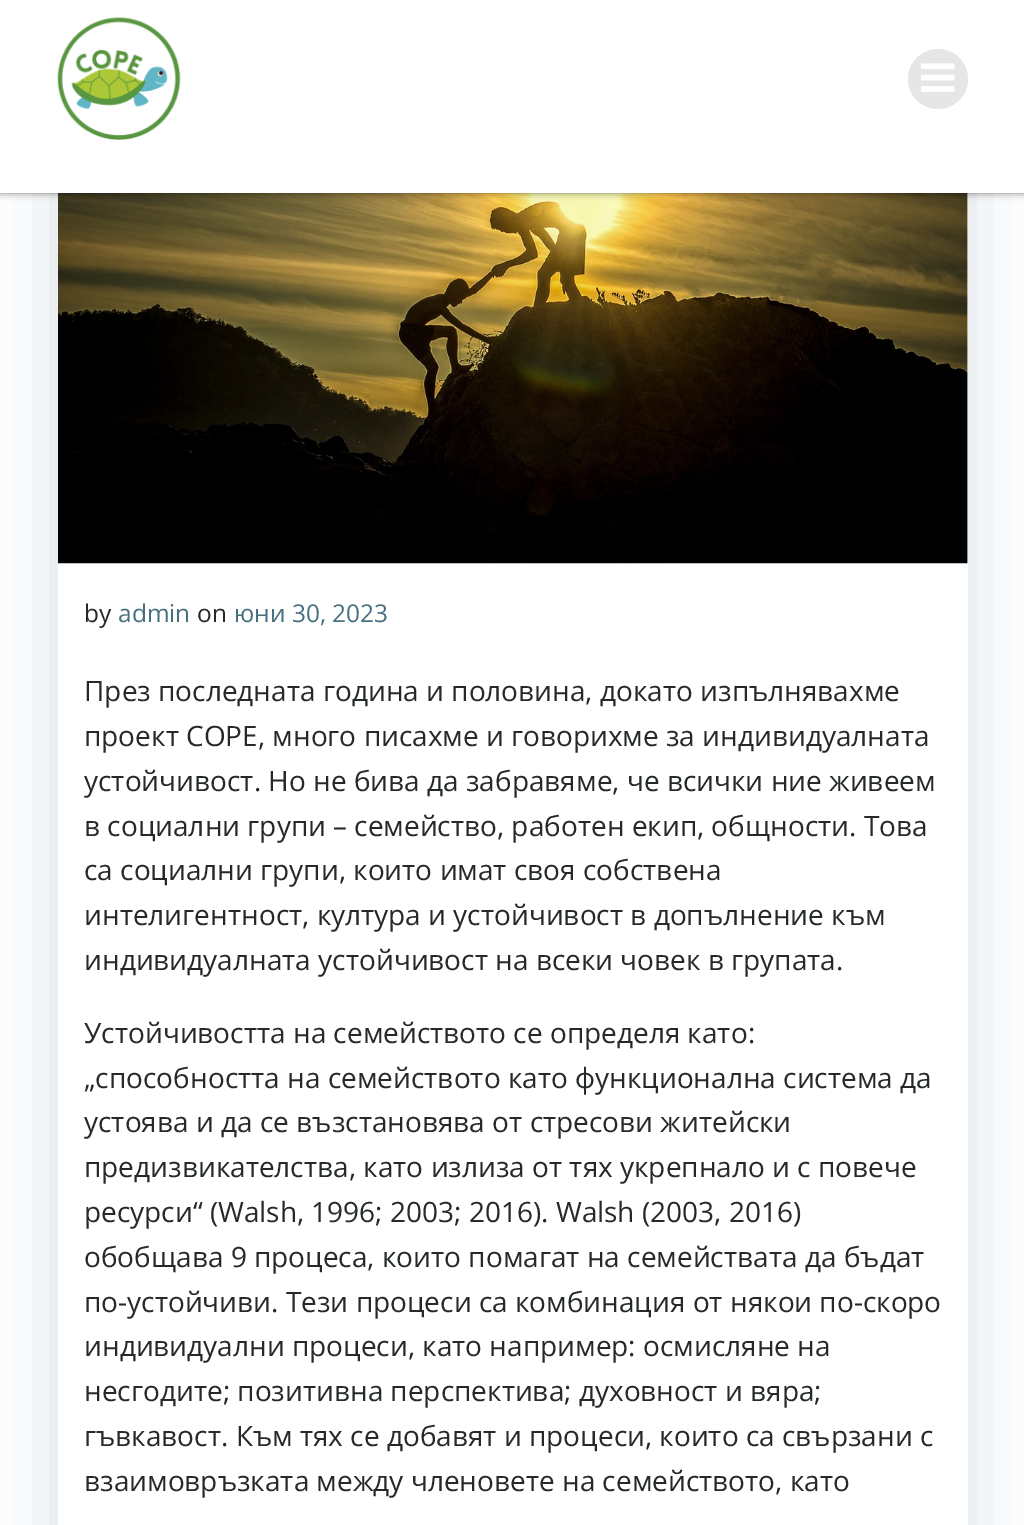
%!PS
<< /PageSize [1024 1525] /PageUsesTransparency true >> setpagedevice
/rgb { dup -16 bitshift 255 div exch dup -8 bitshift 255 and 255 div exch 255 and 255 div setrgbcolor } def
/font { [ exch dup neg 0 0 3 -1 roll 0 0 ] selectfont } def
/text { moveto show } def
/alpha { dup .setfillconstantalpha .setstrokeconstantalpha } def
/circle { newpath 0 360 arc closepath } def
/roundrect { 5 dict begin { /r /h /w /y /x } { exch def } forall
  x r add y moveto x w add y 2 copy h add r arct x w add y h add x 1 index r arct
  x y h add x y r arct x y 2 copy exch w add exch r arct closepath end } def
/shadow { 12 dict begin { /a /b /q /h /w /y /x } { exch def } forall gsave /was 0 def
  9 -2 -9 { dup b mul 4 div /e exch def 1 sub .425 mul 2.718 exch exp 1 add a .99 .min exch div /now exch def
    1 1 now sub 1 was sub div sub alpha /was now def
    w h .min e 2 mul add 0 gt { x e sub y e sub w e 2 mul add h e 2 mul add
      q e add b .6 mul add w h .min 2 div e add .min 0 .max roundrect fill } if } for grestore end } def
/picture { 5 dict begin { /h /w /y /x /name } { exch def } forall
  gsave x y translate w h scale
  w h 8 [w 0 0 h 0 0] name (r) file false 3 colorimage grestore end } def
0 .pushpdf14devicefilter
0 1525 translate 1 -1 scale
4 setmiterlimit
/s1 { /OpenSans-Regular 24.5 font 16#25292A rgb } def
/s2 { /OpenSans-Regular 24.5 font 16#46707F rgb } def
/s3 { /OpenSans-Regular 28 font 16#25292A rgb } def
16#FFFFFF rgb
0 0 1024 1525 rectfill
16#01334A rgb
58 56 910 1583 9 35 0.15 shadow
16#FFFFFF rgb
58 193 910 1332 rectfill
(pic3.raw) 58 193 910 371 picture
16#000000 rgb
0 0 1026 193 0 3.5 0.5 shadow
16#FFFFFF rgb
0 0 1024 193 rectfill
(pic1.raw) 57 17 124 123 picture
16#E6E6E6 rgb
938 79 30 circle fill
(pic2.raw) 921 63 34 29 picture
s1
(by) 84 622 text
s2
(admin) 118 622 text
s1
(on) 197 622 text
s2
(юни 30, 2023) 234 622 text
s3
(През последната година и половина, докато изпълнявахме) 84 701 text
(проект COPE, много писахме и говорихме за индивидуалната) 84 746 text
(устойчивост. Но не бива да забравяме, че всички ние живеем) 84 791 text
(в социални групи – семейство, работен екип, общности. Това) 84 836 text
(са социални групи, които имат своя собствена) 84 880 text
(интелигентност, култура и устойчивост в допълнение към) 84 925 text
(индивидуалната устойчивост на всеки човек в групата.) 84 970 text
(Устойчивостта на семейството се определя като:) 84 1043 text
(„способността на семейството като функционална система да) 84 1088 text
(устоява и да се възстановява от стресови житейски) 84 1132 text
(предизвикателства, като излиза от тях укрепнало и с повече) 84 1177 text
(ресурси“ \(Walsh, 1996; 2003; 2016\). Walsh \(2003, 2016\)) 84 1222 text
(обобщава 9 процеса, които помагат на семействата да бъдат) 84 1267 text
(по-устойчиви. Тези процеси са комбинация от някои по-скоро) 84 1312 text
(индивидуални процеси, като например: осмисляне на) 84 1356 text
(несгодите; позитивна перспектива; духовност и вяра;) 84 1401 text
(гъвкавост. Към тях се добавят и процеси, които са свързани с) 84 1446 text
(взаимовръзката между членовете на семейството, като) 84 1491 text
.poppdf14devicefilter showpage
